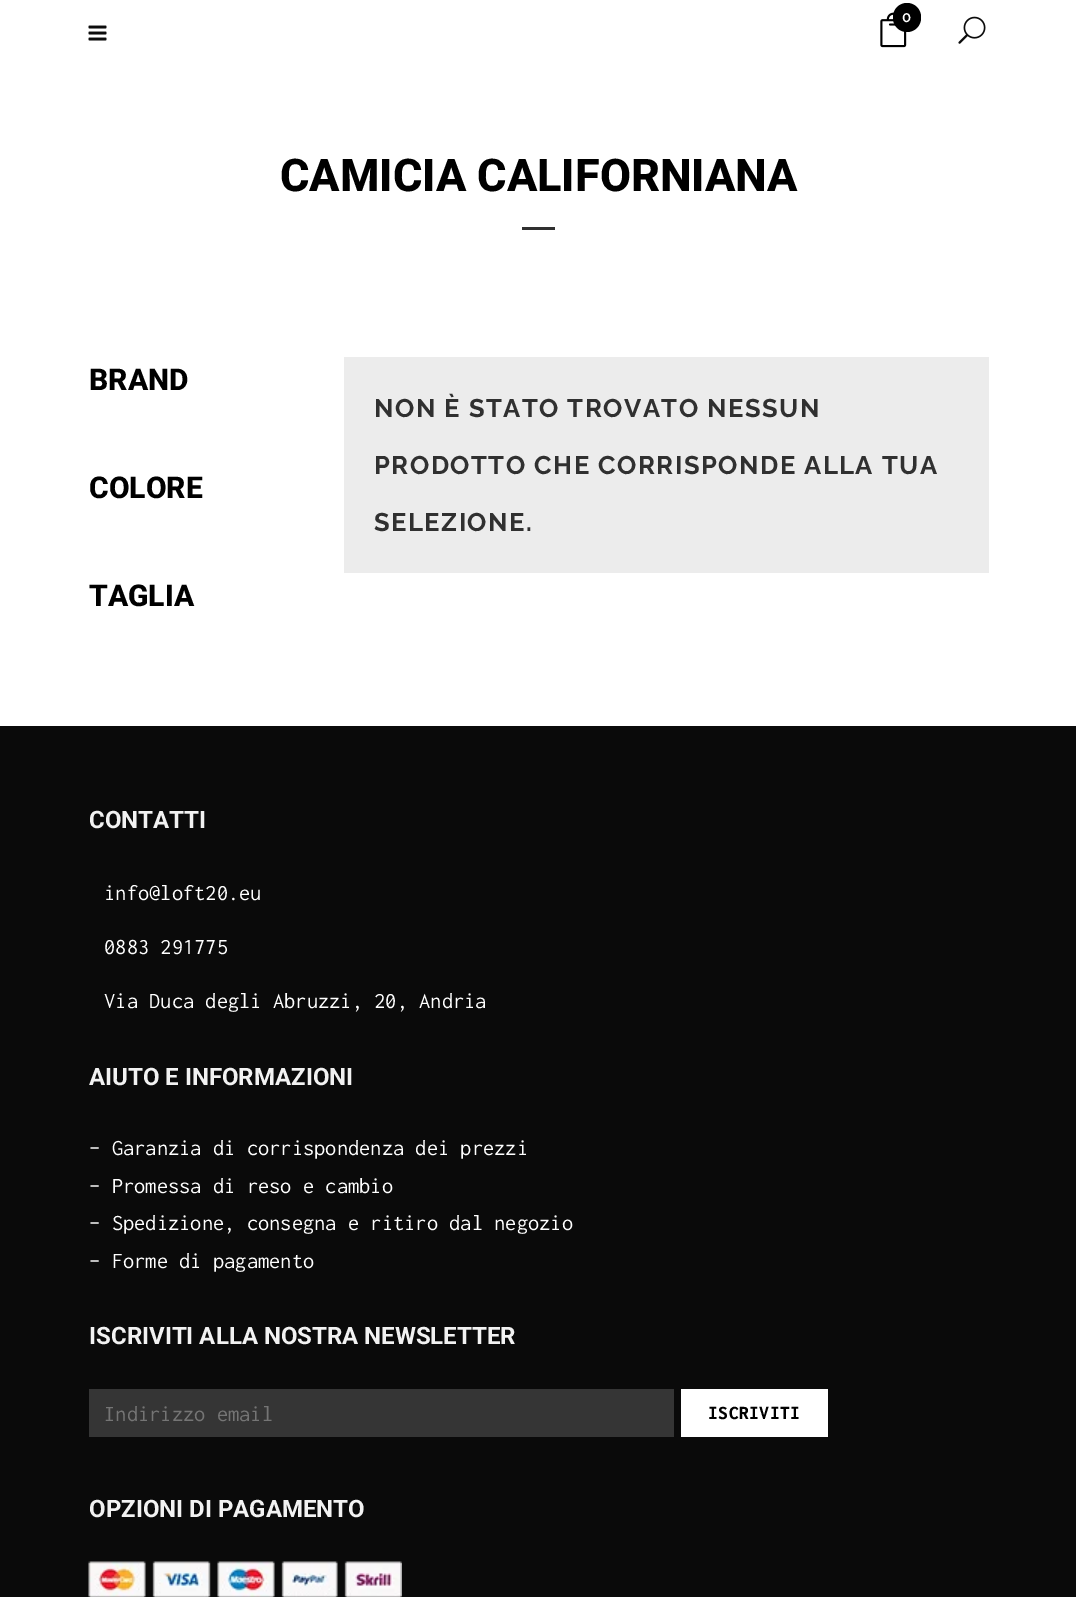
%!PS
<< /PageSize [1076 1597] >> setpagedevice
/rgb { dup -16 bitshift 255 div exch dup -8 bitshift 255 and 255 div exch 255 and 255 div setrgbcolor } def
/font { [ exch dup neg 0 0 3 -1 roll 0 0 ] selectfont } def
/text { moveto show } def
/roundrect { 5 dict begin { /r /h /w /y /x } { exch def } forall
  x r add y moveto x w add y 2 copy h add r arct x w add y h add x 1 index r arct
  x y h add x y r arct x y 2 copy exch w add exch r arct closepath end } def
/picture { 5 dict begin { /h /w /y /x /name } { exch def } forall
  gsave x y translate w h scale
  w h 8 [w 0 0 h 0 0] name (r) file false 3 colorimage grestore end } def
0 1597 translate 1 -1 scale
4 setmiterlimit
/s1 { /Raleway-SemiBold 15 font 16#FFFFFF rgb } def
/s2 { /Roboto-ExtraBold 45 font 16#000000 rgb } def
/s3 { /Roboto-ExtraBold 30 font 16#000000 rgb } def
/s4 { /Roboto-Bold 24 font 16#F2F2F2 rgb } def
/s5 { /Inconsolata-Regular 22.5 font 16#FFFFFF rgb } def
/s6 { /Inconsolata-Regular 22.5 font 16#757575 rgb } def
16#FFFFFF rgb
0 0 1076 1597 rectfill
(pic1.raw) 880 12 27 36 picture
16#000000 rgb
893 3 28 29 14 roundrect fill
s1
(0) 902 22 text
(pic2.raw) 958 16 28 28 picture
(pic3.raw) 88 25 19 16 picture
s2
(CAMICIA CALIFORNIANA) 280 191 text
16#303030 rgb
522 227 33 3 rectfill
s3
(BRAND) 89 390 text
(COLORE) 89 498 text
(TAGLIA) 89 606 text
16#ECECEC rgb
344 357 645 216 rectfill
/Raleway-Bold 25.5 font
16#303030 rgb
374 417 moveto 1.5 0 (NON È STATO TROVATO NESSUN) ashow
374 474 moveto 1.5 0 (PRODOTTO CHE CORRISPONDE ALLA TUA) ashow
374 531 moveto 1.5 0 (SELEZIONE.) ashow
16#0A0A0A rgb
0 726 1076 871 rectfill
s4
(CONTATTI) 89 828 text
s5
(info@loft20.eu) 104 900 text
(0883 291775) 104 954 text
(Via Duca degli Abruzzi, 20, Andria) 104 1008 text
s4
(AIUTO E INFORMAZIONI) 89 1085 text
s5
(– Garanzia di corrispondenza dei prezzi) 89 1155 text
(– Promessa di reso e cambio) 89 1193 text
(– Spedizione, consegna e ritiro dal negozio) 89 1230 text
(– Forme di pagamento) 89 1268 text
s4
(ISCRIVITI ALLA NOSTRA NEWSLETTER) 89 1344 text
16#353535 rgb
89 1389 585 48 rectfill
s6
(Indirizzo email) 104 1421 text
16#FFFFFF rgb
681 1389 147 48 rectfill
/Inconsolata-ExtraBold 19.5 font
16#000000 rgb
708 1419 moveto 0.5 0 (ISCRIVITI) ashow
s4
(OPZIONI DI PAGAMENTO) 89 1517 text
(pic4.raw) 88 1561 314 36 picture
showpage
